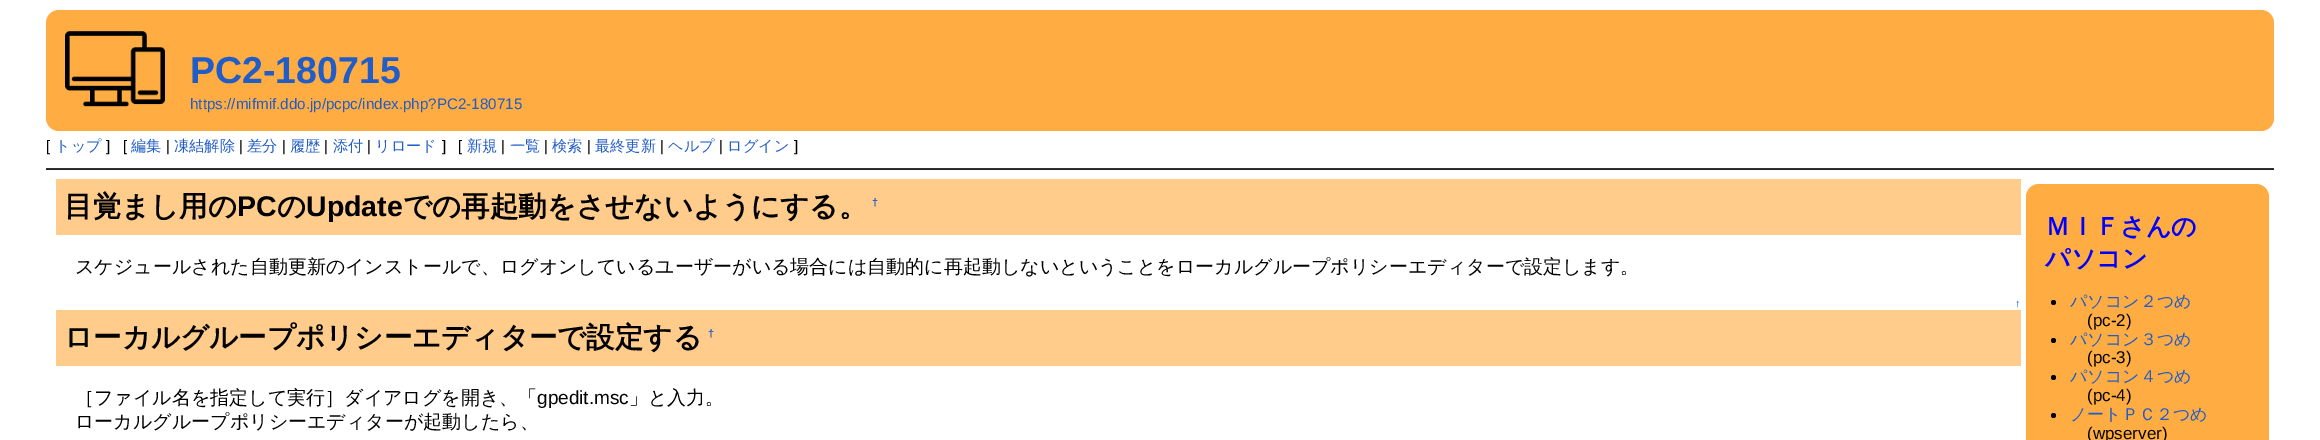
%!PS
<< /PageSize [2320 440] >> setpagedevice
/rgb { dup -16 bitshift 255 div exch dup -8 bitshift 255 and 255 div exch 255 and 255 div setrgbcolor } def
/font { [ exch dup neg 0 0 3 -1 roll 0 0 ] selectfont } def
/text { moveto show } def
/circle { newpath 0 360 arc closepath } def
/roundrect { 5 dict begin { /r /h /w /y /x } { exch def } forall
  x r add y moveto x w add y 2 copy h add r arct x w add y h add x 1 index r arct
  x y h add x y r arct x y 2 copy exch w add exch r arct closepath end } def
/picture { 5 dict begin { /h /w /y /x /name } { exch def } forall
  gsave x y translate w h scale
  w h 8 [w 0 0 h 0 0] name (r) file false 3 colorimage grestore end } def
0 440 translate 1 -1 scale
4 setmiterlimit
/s1 { /LiberationSans-Bold 37.5 font 16#215DC6 rgb } def
/s2 { /LiberationSans-Regular 15.2 font 16#215DC6 rgb } def
/s3 { /LiberationSans-Regular 15.2 font 16#000000 rgb } def
/s4 { /WenQuanYiZenHei-Medium 15.2 font 16#215DC6 rgb } def
/s5 { /WenQuanYiZenHei-Bold 28.5 font 16#000000 rgb } def
/s6 { /LiberationSans-Bold 28.5 font 16#000000 rgb } def
/s7 { /LiberationSans-Bold 11 font 16#215DC6 rgb } def
/s8 { /WenQuanYiZenHei-Medium 19 font 16#000000 rgb } def
/s9 { /LiberationSans-Regular 11 font 16#215DC6 rgb } def
/s10 { /LiberationSans-Regular 19 font 16#000000 rgb } def
/s11 { /WenQuanYiZenHei-Bold 25 font 16#0000FF rgb } def
/s12 { /WenQuanYiZenHei-Medium 17 font 16#215DC6 rgb } def
/s13 { /LiberationSans-Regular 17 font 16#000000 rgb } def
16#FFFFFF rgb
0 0 2320 440 rectfill
16#FFAD42 rgb
46 10 2228 121 13 roundrect fill
(pic1.raw) 65 31 100 76 picture
s1
(PC2-180715) 190 83 text
s2
(https://mifmif.ddo.jp/pcpc/index.php?PC2-180715) 190 109 text
s3
([) 46 151 text
s4
(トップ) 55 151 text
s3
(]) 106 151 text
([) 123 151 text
s4
(編集) 131 151 text
s3
(|) 166 151 text
s4
(凍結解除) 174 151 text
s3
(|) 239 151 text
s4
(差分) 247 151 text
s3
(|) 282 151 text
s4
(履歴) 290 151 text
s3
(|) 324 151 text
s4
(添付) 333 151 text
s3
(|) 367 151 text
s4
(リロード) 375 151 text
s3
(]) 442 151 text
([) 458 151 text
s4
(新規) 467 151 text
s3
(|) 501 151 text
s4
(一覧) 510 151 text
s3
(|) 544 151 text
s4
(検索) 552 151 text
s3
(|) 587 151 text
s4
(最終更新) 595 151 text
s3
(|) 660 151 text
s4
(ヘルプ) 668 151 text
s3
(|) 719 151 text
s4
(ログイン) 727 151 text
s3
(]) 794 151 text
16#333333 rgb
46 168 2228 1 rectfill
16#222222 rgb
46 169 2228 1 rectfill
16#FFCC8C rgb
56 179 1965 56 rectfill
s5
(目覚まし用の) 64 216 text
s6
(PC) 237 216 text
s5
(の) 277 216 text
s6
(Update) 306 216 text
s5
(での再起動をさせないようにする。) 403 216 text
s7
(†) 872 206 text
s8
(スケジュールされた自動更新のインストールで、ログオンしているユーザーがいる場合には自動的に再起動しないということをローカルグループポリシーエディターで設定します。) 75 273 text
s9
(↑) 2015 307 text
16#FFCC8C rgb
56 310 1965 56 rectfill
s5
(ローカルグループポリシーエディターで設定する) 64 347 text
s7
(†) 708 337 text
s8
(［ファイル名を指定して実行］ダイアログを開き、「) 75 404 text
s10
(gpedit.msc) 537 404 text
s8
(」と入力。) 629 404 text
(ローカルグループポリシーエディターが起動したら、) 75 428 text
16#FFAD42 rgb
2026 184 243 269 13 roundrect fill
s11
(ＭＩＦさんの) 2045 235 text
(パソコン) 2045 267 text
16#000000 rgb
2053.5 302.5 2.5 circle fill
s12
(パソコン２つめ) 2070 307 text
s13
(\(pc-2\)) 2087 326 text
2053.5 340.5 2.5 circle fill
s12
(パソコン３つめ) 2070 345 text
s13
(\(pc-3\)) 2087 363 text
2053.5 377.5 2.5 circle fill
s12
(パソコン４つめ) 2070 382 text
s13
(\(pc-4\)) 2087 401 text
2053.5 415.5 2.5 circle fill
s12
(ノートＰＣ２つめ) 2070 420 text
s13
(\(wpserver\)) 2087 439 text
showpage
